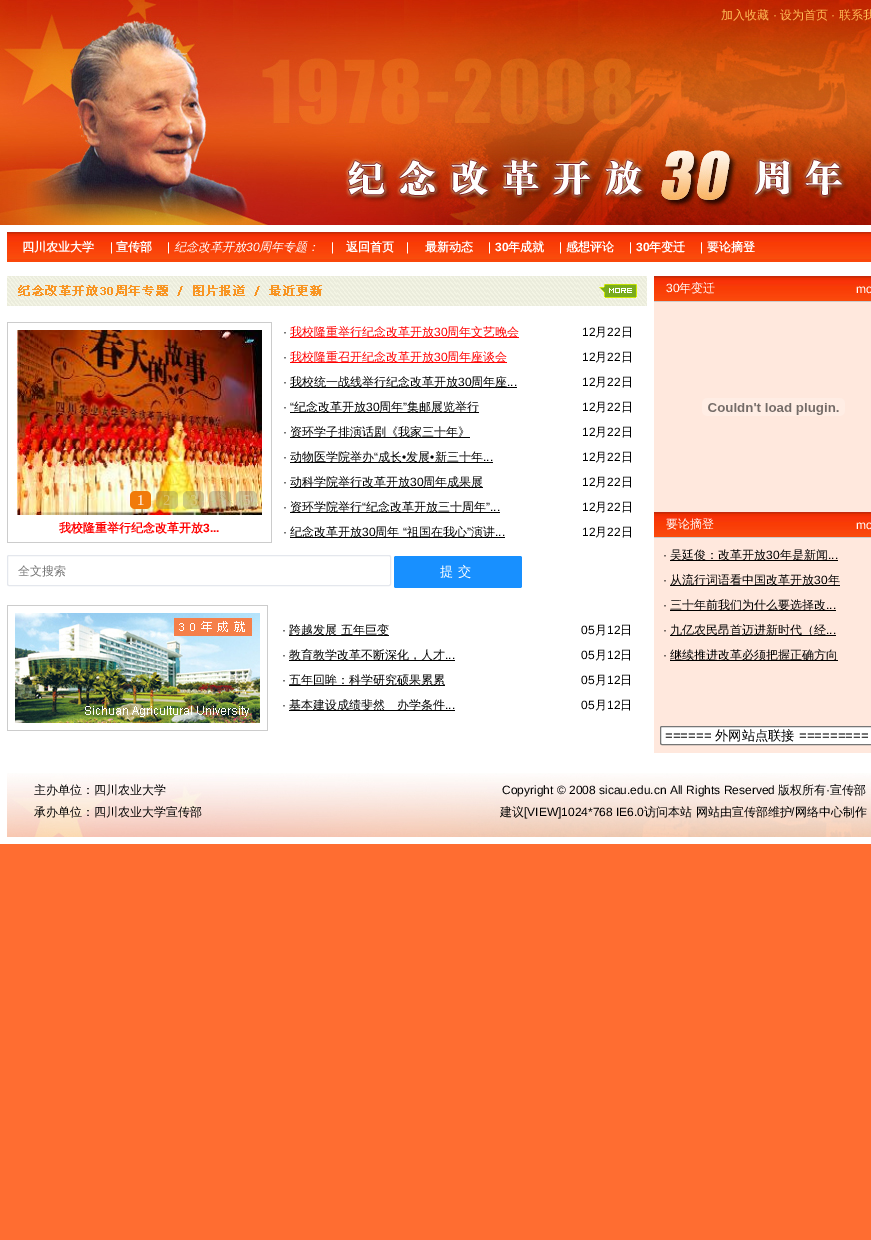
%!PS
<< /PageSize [871 1240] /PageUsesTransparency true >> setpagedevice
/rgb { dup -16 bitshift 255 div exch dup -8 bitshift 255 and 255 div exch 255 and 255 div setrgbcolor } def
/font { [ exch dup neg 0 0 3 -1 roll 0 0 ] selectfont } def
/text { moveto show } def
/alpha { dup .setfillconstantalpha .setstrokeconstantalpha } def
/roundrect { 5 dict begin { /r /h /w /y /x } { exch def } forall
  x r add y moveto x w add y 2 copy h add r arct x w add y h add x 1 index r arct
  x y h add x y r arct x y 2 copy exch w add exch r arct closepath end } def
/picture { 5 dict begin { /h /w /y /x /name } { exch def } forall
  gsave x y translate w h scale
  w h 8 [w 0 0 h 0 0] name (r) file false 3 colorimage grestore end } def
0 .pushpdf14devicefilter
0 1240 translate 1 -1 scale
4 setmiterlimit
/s1 { /WenQuanYiZenHei-Medium 12 font 16#FFBB55 rgb } def
/s2 { /LiberationSans-Regular 12 font 16#FFBB55 rgb } def
/s3 { /WenQuanYiZenHei-Bold 12 font 16#FFFFFF rgb } def
/s4 { /LiberationSans-Regular 12 font 16#FFFFFF rgb } def
/s5 { /WenQuanYiZenHei-MediumItalic 12 font 16#FFFFFF rgb } def
/s6 { /LiberationSans-Italic 12 font 16#FFFFFF rgb } def
/s7 { /LiberationSans-Bold 12 font 16#FFFFFF rgb } def
/s8 { /LiberationSerif-Regular 15 font 16#FFFFFF rgb } def
/s9 { /LiberationSerif-Regular 15 font 16#DBC26B rgb } def
/s10 { /LiberationSerif-Regular 15 font 16#DCCF89 rgb } def
/s11 { /LiberationSerif-Regular 15 font 16#DACBA7 rgb } def
/s12 { /WenQuanYiZenHei-Bold 12 font 16#FF0000 rgb } def
/s13 { /LiberationSans-Bold 12 font 16#FF0000 rgb } def
/s14 { /LiberationSans-Regular 12 font 16#000000 rgb } def
/s15 { /WenQuanYiZenHei-Medium 12 font 16#FF0000 rgb } def
/s16 { /LiberationSans-Regular 12 font 16#FF0000 rgb } def
/s17 { /WenQuanYiZenHei-Medium 12 font 16#000000 rgb } def
/s18 { /WenQuanYiZenHei-Medium 12 font 16#757575 rgb } def
/s19 { /WenQuanYiZenHei-Medium 12 font 16#FFFFFF rgb } def
/s20 { /LiberationSans-Regular 13.25 font 16#000000 rgb } def
/s21 { /WenQuanYiZenHei-Medium 13.25 font 16#000000 rgb } def
16#FF6D31 rgb
0 0 871 1240 rectfill
(pic1.raw) 0 0 871 30 picture
s1
(加入收藏) 721 19 text
s2
(·) 773 19 text
s1
(设为首页) 780 19 text
s2
(·) 831 19 text
s1
(联系我) 839 19 text
(pic2.raw) 0 30 871 195 picture
16#FFFFFF rgb
0 225 871 619 rectfill
(pic3.raw) 7 232 864 30 picture
s3
(四川农业大学) 22 251 text
s4
(|) 110 251 text
s3
(宣传部) 116 251 text
s4
(|) 167 251 text
s5
(纪念改革开放) 174 251 text
s6
(30) 246 251 text
s5
(周年专题：) 259 251 text
s4
(|) 331 251 text
s3
(返回首页) 346 251 text
s4
(|) 406 251 text
s3
(最新动态) 425 251 text
s4
(|) 488 251 text
s7
(30) 495 251 text
s3
(年成就) 508 251 text
s4
(|) 559 251 text
s3
(感想评论) 566 251 text
s4
(|) 629 251 text
s7
(30) 636 251 text
s3
(年变迁) 649 251 text
s4
(|) 700 251 text
s3
(要论摘登) 707 251 text
(pic4.raw) 322 276 267 30 picture
(pic5.raw) 7 276 315 30 picture
(pic6.raw) 589 276 58 30 picture
(pic7.raw) 599 284 38 14 picture
16#CCCCCC rgb
7 322 265 221 rectfill
16#FFFFFF rgb
8 323 263 219 rectfill
(pic8.raw) 17 330 245 185 picture
16#F17B0A rgb
130 491 21 18 5 roundrect fill
s8
(1) 137 505 text
0.3 alpha
16#666666 rgb
156 491 22 18 5 roundrect fill
1 alpha
s9
(2) 163 505 text
0.3 alpha
16#666666 rgb
183 491 21 18 5 roundrect fill
1 alpha
s10
(3) 190 505 text
0.3 alpha
16#666666 rgb
209 491 22 18 5 roundrect fill
236 491 21 18 5 roundrect fill
1 alpha
s11
(5) 243 505 text
s12
(我校隆重举行纪念改革开放) 59 532 text
s13
(3...) 203 532 text
s14
(·) 283 336 text
16#FF0000 rgb
290 337 229 1 rectfill
s15
(我校隆重举行纪念改革开放) 290 336 text
s16
(30) 434 336 text
s15
(周年文艺晚会) 447 336 text
s14
(12) 582 336 text
s17
(月) 595 336 text
s14
(22) 607 336 text
s17
(日) 621 336 text
s14
(·) 283 361 text
16#FF0000 rgb
290 362 217 1 rectfill
s15
(我校隆重召开纪念改革开放) 290 361 text
s16
(30) 434 361 text
s15
(周年座谈会) 447 361 text
s14
(12) 582 361 text
s17
(月) 595 361 text
s14
(22) 607 361 text
s17
(日) 621 361 text
s14
(·) 283 386 text
290 387 227 1 rectfill
s17
(我校统一战线举行纪念改革开放) 290 386 text
s14
(30) 458 386 text
s17
(周年座) 471 386 text
s14
(...) 507 386 text
(12) 582 386 text
s17
(月) 595 386 text
s14
(22) 607 386 text
s17
(日) 621 386 text
s14
(· “) 283 411 text
290 412 189 1 rectfill
s17
(纪念改革开放) 294 411 text
s14
(30) 366 411 text
s17
(周年) 379 411 text
s14
(”) 403 411 text
s17
(集邮展览举行) 407 411 text
s14
(12) 582 411 text
s17
(月) 595 411 text
s14
(22) 607 411 text
s17
(日) 621 411 text
s14
(·) 283 436 text
290 437 180 1 rectfill
s17
(资环学子排演话剧《我家三十年》) 290 436 text
s14
(12) 582 436 text
s17
(月) 595 436 text
s14
(22) 607 436 text
s17
(日) 621 436 text
290 462 203 1 rectfill
(动物医学院举办) 290 461 text
s14
(“) 374 461 text
s17
(成长) 378 461 text
(发展) 406 461 text
s14
(•) 430 461 text
s17
(新三十年) 435 461 text
s14
(·) 283 461 text
(•) 402 461 text
(...) 483 461 text
(12) 582 461 text
s17
(月) 595 461 text
s14
(22) 607 461 text
s17
(日) 621 461 text
s14
(·) 283 486 text
290 487 193 1 rectfill
s17
(动科学院举行改革开放) 290 486 text
s14
(30) 410 486 text
s17
(周年成果展) 423 486 text
s14
(12) 582 486 text
s17
(月) 595 486 text
s14
(22) 607 486 text
s17
(日) 621 486 text
s14
(·) 283 511 text
290 512 210 1 rectfill
s17
(资环学院举行) 290 511 text
s14
(“) 362 511 text
s17
(纪念改革开放三十周年) 366 511 text
s14
(”...) 486 511 text
(12) 582 511 text
s17
(月) 595 511 text
s14
(22) 607 511 text
s17
(日) 621 511 text
290 537 215 1 rectfill
(纪念改革开放) 290 536 text
s14
(30) 362 536 text
s17
(周年) 375 536 text
s14
(“) 403 536 text
s17
(祖国在我心) 407 536 text
s14
(”) 467 536 text
s17
(演讲) 471 536 text
s14
(·) 283 536 text
(...) 495 536 text
(12) 582 536 text
s17
(月) 595 536 text
s14
(22) 607 536 text
s17
(日) 621 536 text
16#E4E7ED rgb
7.5 555.5 383 30 1.5 roundrect stroke
s18
(全文搜索) 18 575 text
16#1890FF rgb
394 556 128 32 2 roundrect fill
/WenQuanYiZenHei-Medium 13.25 font
16#FFFFFF rgb
440 576 moveto 5 0 (提交) ashow
16#CCCCCC rgb
7 605 261 126 rectfill
16#FFFFFF rgb
8 606 259 124 rectfill
(pic9.raw) 15 613 245 110 picture
s14
(·) 282 634 text
289 635 100 1 rectfill
s17
(跨越发展 五年巨变) 289 634 text
s14
(05) 581 634 text
s17
(月) 595 634 text
s14
(12) 607 634 text
s17
(日) 620 634 text
s14
(·) 282 659 text
289 660 166 1 rectfill
s17
(教育教学改革不断深化，人才) 289 659 text
s14
(...) 445 659 text
(05) 581 659 text
s17
(月) 595 659 text
s14
(12) 607 659 text
s17
(日) 620 659 text
s14
(·) 282 684 text
289 685 156 1 rectfill
s17
(五年回眸：科学研究硕果累累) 289 684 text
s14
(05) 581 684 text
s17
(月) 595 684 text
s14
(12) 607 684 text
s17
(日) 620 684 text
s14
(·) 282 709 text
289 710 166 1 rectfill
s17
(基本建设成绩斐然　办学条件) 289 709 text
s14
(...) 445 709 text
(05) 581 709 text
s17
(月) 595 709 text
s14
(12) 607 709 text
s17
(日) 620 709 text
(pic10.raw) 654 276 192 25 picture
s4
(30) 666 292 text
s19
(年变迁) 679 292 text
(pic11.raw) 846 276 25 25 picture
s4
(mo) 856 293 text
16#CCCCCC rgb
654 301 217 1 rectfill
16#FFE8DD rgb
654 302 217 210 rectfill
(pic12.raw) 702 398 143 18 picture
(pic10.raw) 654 512 192 25 picture
s19
(要论摘登) 666 528 text
(pic11.raw) 846 512 25 25 picture
s4
(mo) 856 529 text
16#CCCCCC rgb
654 537 217 1 rectfill
16#FFE8DD rgb
654 538 217 215 rectfill
s14
(·) 663 559 text
670 560 168 1 rectfill
s17
(吴廷俊：改革开放) 670 559 text
s14
(30) 766 559 text
s17
(年是新闻) 780 559 text
s14
(...) 828 559 text
(·) 663 584 text
670 585 170 1 rectfill
s17
(从流行词语看中国改革开放) 670 584 text
s14
(30) 814 584 text
s17
(年) 828 584 text
s14
(·) 663 609 text
670 610 166 1 rectfill
s17
(三十年前我们为什么要选择改) 670 609 text
s14
(...) 826 609 text
(·) 663 634 text
670 635 166 1 rectfill
s17
(九亿农民昂首迈进新时代（经) 670 634 text
s14
(...) 826 634 text
(·) 663 659 text
670 660 168 1 rectfill
s17
(继续推进改革必须把握正确方向) 670 659 text
16#FFFFFF rgb
660.5 726.5 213 18 1.5 roundrect gsave fill grestore
16#767676 rgb
stroke
s20
(======) 665 740 text
s21
(外网站点联接) 715 740 text
s20
(=========) 799 740 text
(pic13.raw) 7 773 864 64 picture
s17
(主办单位：四川农业大学) 34 794 text
(承办单位：四川农业大学宣传部) 34 816 text
s14
(Copyright © 2008 sicau.edu.cn All Rights Reserved) 502 794 text
s17
(版权所有) 778 794 text
s14
(·) 826 794 text
s17
(宣传部) 830 794 text
(建议) 500 816 text
s14
([VIEW]1024*768 IE6.0) 524 816 text
s17
(访问本站 网站由宣传部维护 网络中心制作) 644 816 text
s14
(/) 791 816 text
.poppdf14devicefilter showpage
